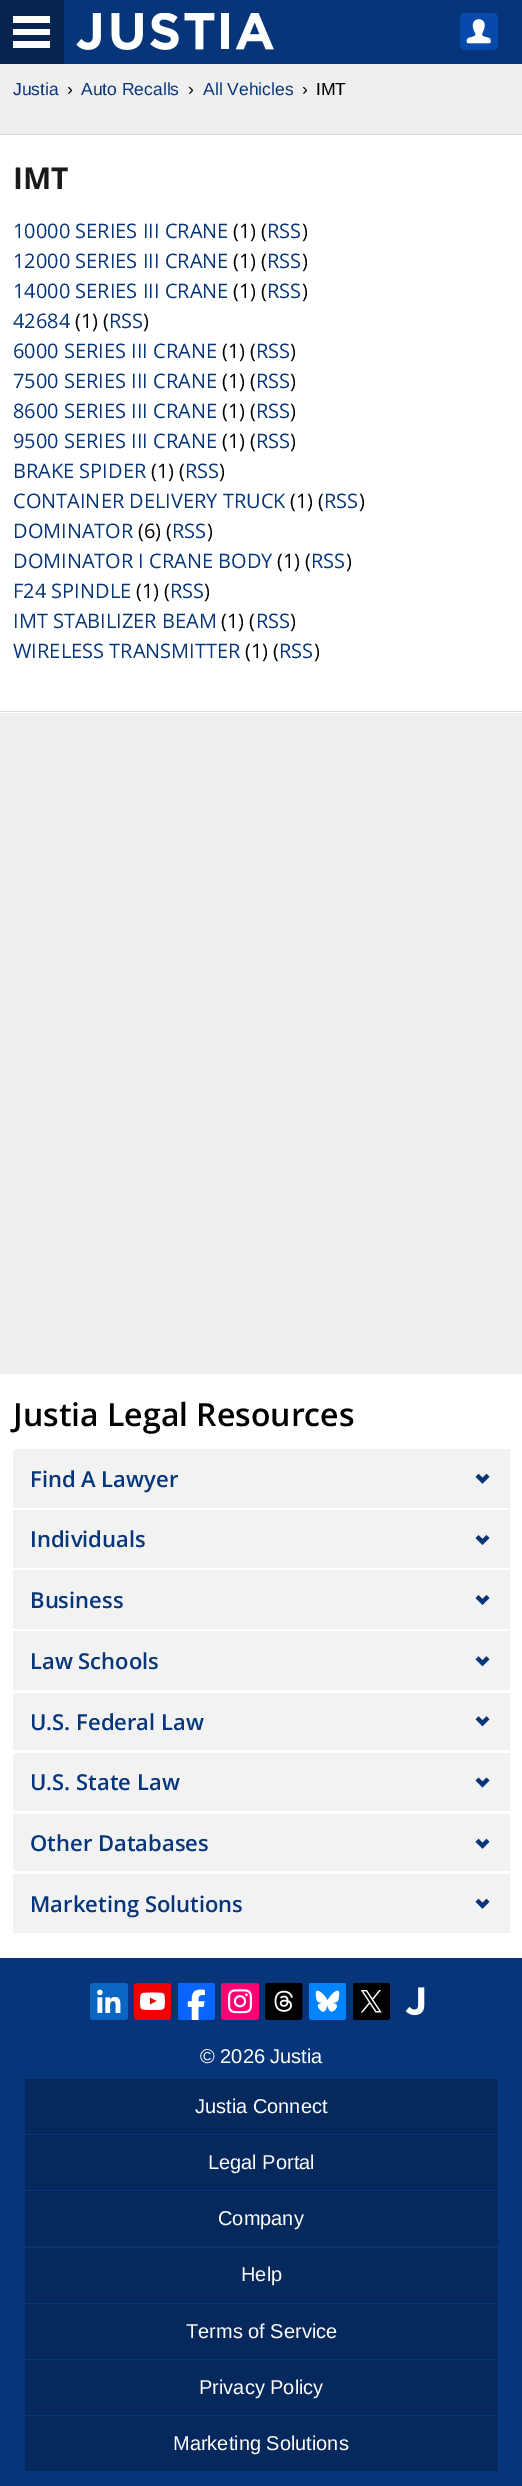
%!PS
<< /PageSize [522 2486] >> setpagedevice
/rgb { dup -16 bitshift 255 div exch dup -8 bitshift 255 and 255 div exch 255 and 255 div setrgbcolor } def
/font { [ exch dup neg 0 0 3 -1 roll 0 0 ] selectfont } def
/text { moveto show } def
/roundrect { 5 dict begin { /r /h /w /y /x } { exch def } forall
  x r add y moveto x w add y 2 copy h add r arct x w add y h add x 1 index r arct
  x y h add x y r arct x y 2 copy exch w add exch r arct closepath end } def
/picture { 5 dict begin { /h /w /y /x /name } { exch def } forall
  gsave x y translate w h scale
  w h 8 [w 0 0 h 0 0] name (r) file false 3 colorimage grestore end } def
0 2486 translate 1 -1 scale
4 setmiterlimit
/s1 { /LiberationSans-Regular 17.5 font 16#06357A rgb } def
/s2 { /LiberationSans-Regular 17.5 font 16#000000 rgb } def
/s3 { /OpenSans-Bold 30 font 16#1A1A1A rgb } def
/s4 { /OpenSans-Regular 20 font 16#06357A rgb } def
/s5 { /OpenSans-Regular 20 font 16#000000 rgb } def
/s6 { /OpenSans-SemiBold 32 font 16#000000 rgb } def
/s7 { /OpenSans-SemiBold 22 font 16#06357A rgb } def
/s8 { /LiberationSans-Regular 20 font 16#FFFFFF rgb } def
16#EFEFEF rgb
0 0 522 2486 rectfill
16#06357A rgb
64 0 458 64 rectfill
16#052450 rgb
0 0 64 64 rectfill
16#FFFFFF rgb
13 16 37 7 rectfill
13 29 37 6 rectfill
13 41 37 7 rectfill
(pic1.raw) 76 13 198 37 picture
16#084AAB rgb
460 13 38 37 5 roundrect fill
(pic2.raw) 466 19 25 25 picture
s1
(Justia) 13 95 text
s2
(›) 67 95 text
s1
(Auto Recalls) 81 95 text
s2
(›) 188 95 text
s1
(All Vehicles) 203 95 text
s2
(›) 302 95 text
(IMT) 316 95 text
16#FFFFFF rgb
0 135 522 578 rectfill
16#DBDBDB rgb
0 134 522 1 rectfill
0 711 522 1 rectfill
s3
(IMT) 13 189 text
s4
(10000 SERIES III CRANE) 13 238 text
s5
(\(1\) \() 233 238 text
s4
(RSS) 267 238 text
s5
(\)) 302 238 text
s4
(12000 SERIES III CRANE) 13 268 text
s5
(\(1\) \() 233 268 text
s4
(RSS) 267 268 text
s5
(\)) 302 268 text
s4
(14000 SERIES III CRANE) 13 298 text
s5
(\(1\) \() 233 298 text
s4
(RSS) 267 298 text
s5
(\)) 302 298 text
s4
(42684) 13 328 text
s5
(\(1\) \() 75 328 text
s4
(RSS) 109 328 text
s5
(\)) 143 328 text
s4
(6000 SERIES III CRANE) 13 358 text
s5
(\(1\) \() 222 358 text
s4
(RSS) 256 358 text
s5
(\)) 290 358 text
s4
(7500 SERIES III CRANE) 13 388 text
s5
(\(1\) \() 222 388 text
s4
(RSS) 256 388 text
s5
(\)) 290 388 text
s4
(8600 SERIES III CRANE) 13 418 text
s5
(\(1\) \() 222 418 text
s4
(RSS) 256 418 text
s5
(\)) 290 418 text
s4
(9500 SERIES III CRANE) 13 448 text
s5
(\(1\) \() 222 448 text
s4
(RSS) 256 448 text
s5
(\)) 290 448 text
s4
(BRAKE SPIDER) 13 478 text
s5
(\(1\) \() 151 478 text
s4
(RSS) 185 478 text
s5
(\)) 219 478 text
s4
(CONTAINER DELIVERY TRUCK) 13 508 text
s5
(\(1\) \() 290 508 text
s4
(RSS) 324 508 text
s5
(\)) 359 508 text
s4
(DOMINATOR) 13 538 text
s5
(\(6\) \() 138 538 text
s4
(RSS) 172 538 text
s5
(\)) 207 538 text
s4
(DOMINATOR I CRANE BODY) 13 568 text
s5
(\(1\) \() 277 568 text
s4
(RSS) 311 568 text
s5
(\)) 346 568 text
s4
(F24 SPINDLE) 13 598 text
s5
(\(1\) \() 136 598 text
s4
(RSS) 170 598 text
s5
(\)) 204 598 text
s4
(IMT STABILIZER BEAM) 13 628 text
s5
(\(1\) \() 221 628 text
s4
(RSS) 256 628 text
s5
(\)) 290 628 text
s4
(WIRELESS TRANSMITTER) 13 658 text
s5
(\(1\) \() 245 658 text
s4
(RSS) 279 658 text
s5
(\)) 314 658 text
16#FFFFFF rgb
0 1374 522 584 rectfill
16#E6EAF1 rgb
0 1373 522 1 rectfill
s6
(Justia Legal Resources) 13 1426 text
16#F2F2F2 rgb
13 1449 497 59 rectfill
s7
(Find A Lawyer) 30 1487 text
(pic3.raw) 475 1473 15 11 picture
16#F2F2F2 rgb
13 1510 497 58 rectfill
s7
(Individuals) 30 1547 text
(pic4.raw) 475 1535 15 10 picture
16#F2F2F2 rgb
13 1570 497 59 rectfill
s7
(Business) 30 1608 text
(pic4.raw) 475 1595 15 10 picture
16#F2F2F2 rgb
13 1631 497 59 rectfill
s7
(Law Schools) 30 1669 text
(pic5.raw) 475 1656 15 11 picture
16#F2F2F2 rgb
13 1693 497 57 rectfill
s7
(U.S. Federal Law) 30 1730 text
(pic5.raw) 475 1716 15 11 picture
16#F2F2F2 rgb
13 1753 497 58 rectfill
s7
(U.S. State Law) 30 1790 text
(pic6.raw) 475 1777 15 11 picture
16#F2F2F2 rgb
13 1814 497 57 rectfill
s7
(Other Databases) 30 1851 text
(pic3.raw) 475 1838 15 11 picture
16#F2F2F2 rgb
13 1874 497 59 rectfill
s7
(Marketing Solutions) 30 1912 text
(pic3.raw) 475 1898 15 11 picture
0 1958 522 528 rectfill
(pic7.raw) 90 1983 38 37 picture
(pic8.raw) 134 1983 37 37 picture
(pic9.raw) 178 1983 37 37 picture
(pic10.raw) 221 1983 38 37 picture
(pic11.raw) 265 1983 38 37 picture
(pic12.raw) 309 1983 37 37 picture
(pic13.raw) 353 1983 37 37 picture
(pic14.raw) 405 1987 20 29 picture
s8
(© 2026 Justia) 200 2063 text
16#05295D rgb
25 2079 473 55 rectfill
s8
(Justia Connect) 195 2113 text
16#05295D rgb
25 2135 473 55 rectfill
s8
(Legal Portal) 208 2169 text
16#05295D rgb
25 2191 473 55 rectfill
s8
(Company) 218 2225 text
16#05295D rgb
25 2248 473 55 rectfill
s8
(Help) 241 2281 text
16#05295D rgb
25 2304 473 55 rectfill
s8
(Terms of Service) 186 2338 text
16#05295D rgb
25 2360 473 55 rectfill
s8
(Privacy Policy) 199 2394 text
16#05295D rgb
25 2416 473 55 rectfill
s8
(Marketing Solutions) 173 2450 text
showpage
